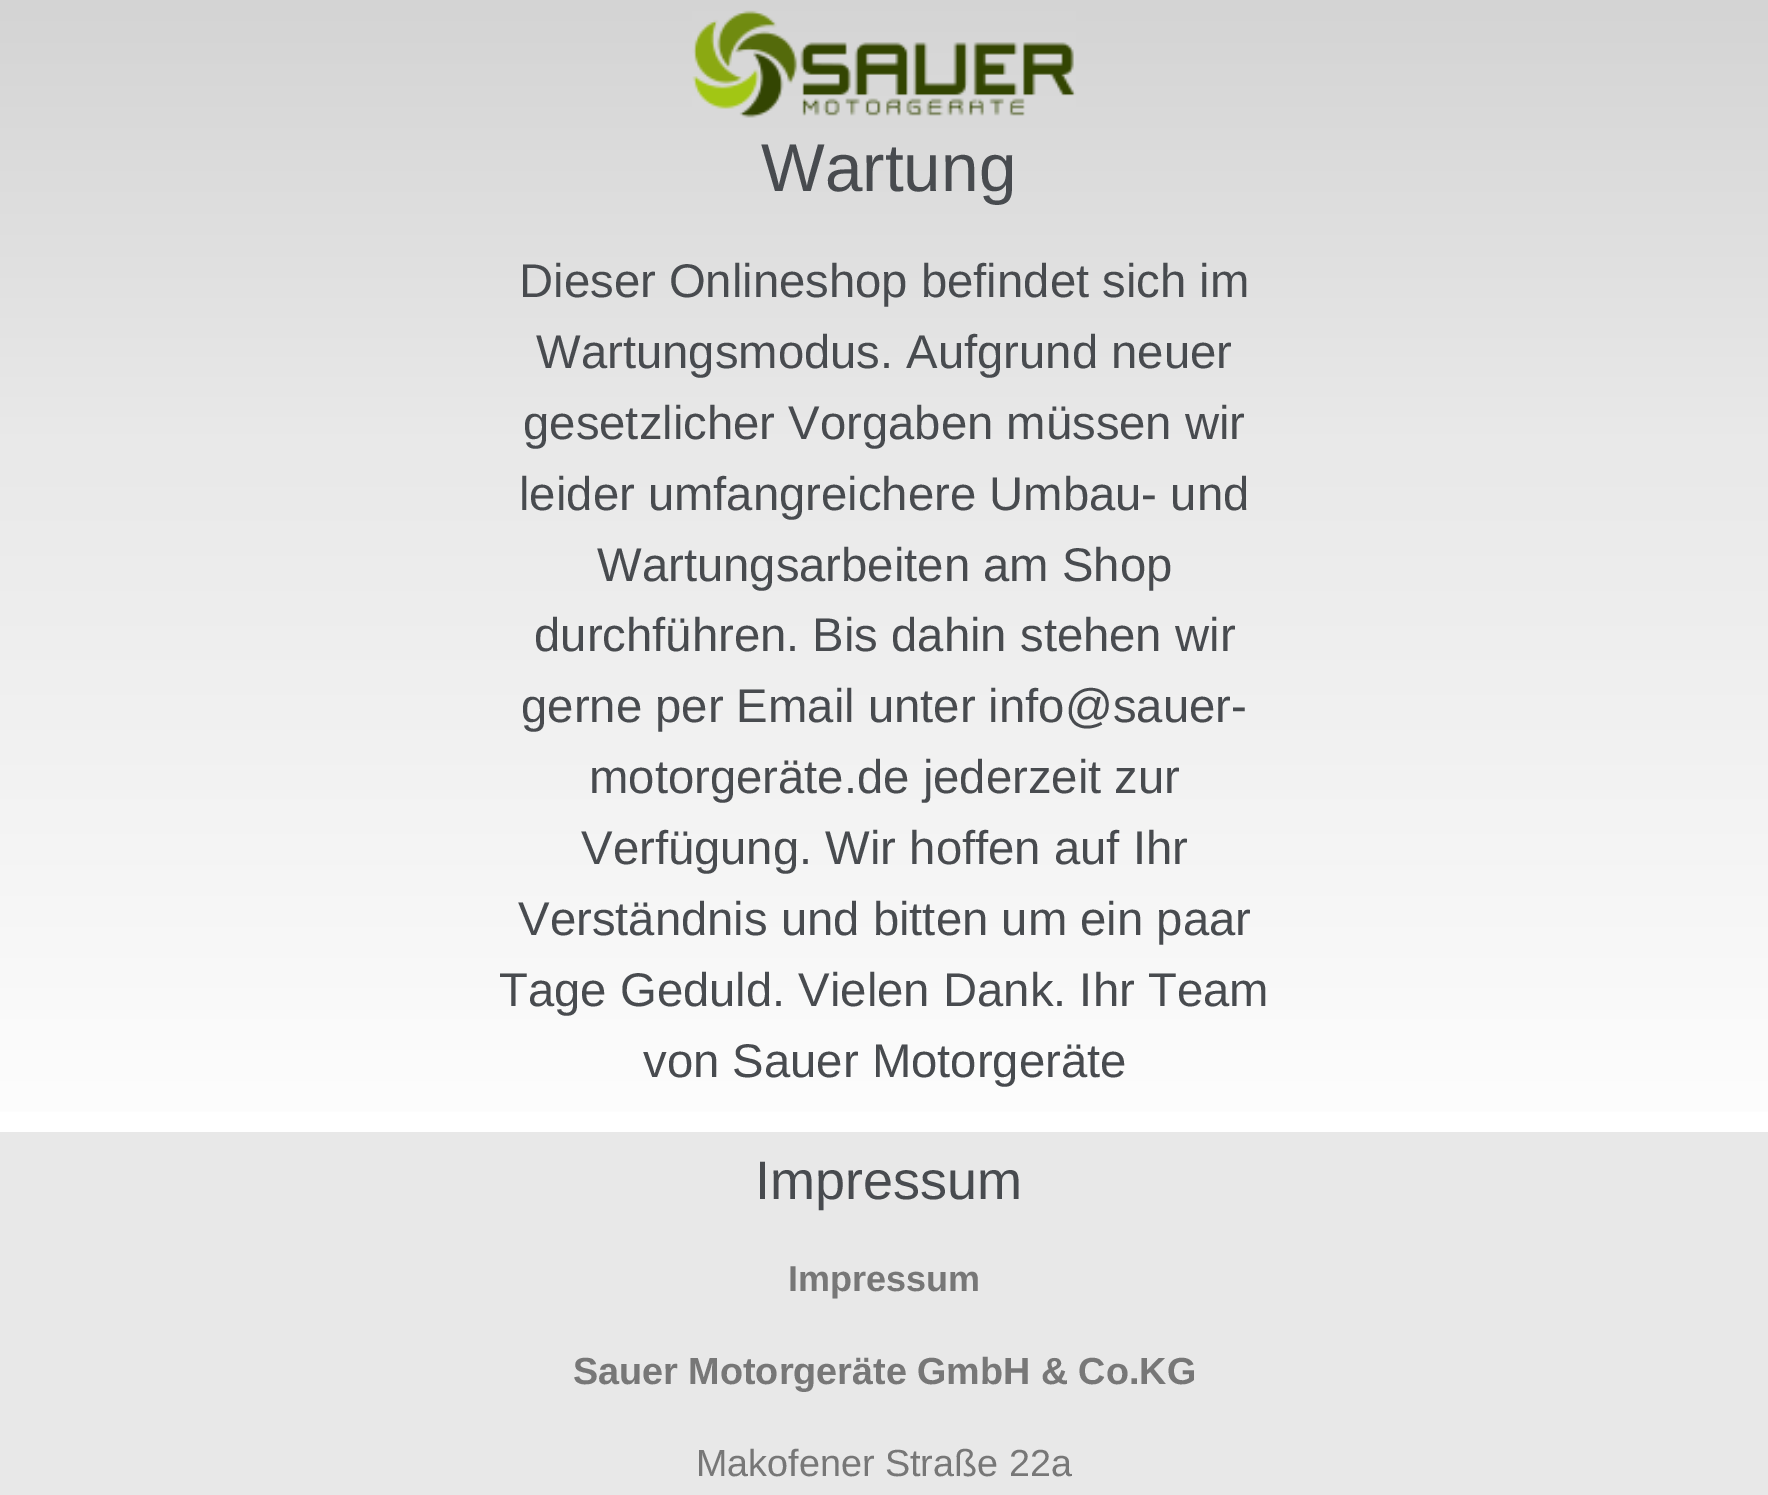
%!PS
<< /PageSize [1768 1495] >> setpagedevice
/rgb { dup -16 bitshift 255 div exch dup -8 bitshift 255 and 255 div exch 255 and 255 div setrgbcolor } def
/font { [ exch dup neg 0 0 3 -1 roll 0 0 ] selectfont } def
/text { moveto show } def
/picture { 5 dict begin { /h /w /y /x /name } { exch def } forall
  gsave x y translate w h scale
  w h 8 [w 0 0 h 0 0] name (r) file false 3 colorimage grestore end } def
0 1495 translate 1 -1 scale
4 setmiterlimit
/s1 { /LiberationSans-Regular 67.5 font 16#484B4F rgb } def
/s2 { /LiberationSans-Regular 47.25 font 16#484B4F rgb } def
/s3 { /LiberationSans-Regular 54 font 16#484B4F rgb } def
/s4 { /LiberationSans-Bold 36 font 16#777777 rgb } def
/s5 { /LiberationSans-Bold 37.75 font 16#777777 rgb } def
/s6 { /LiberationSans-Regular 37.75 font 16#777777 rgb } def
16#FFFFFF rgb
0 0 1768 1495 rectfill
gsave 0 0 moveto 1768 0 lineto 1768 1112 lineto 0 1112 lineto closepath clip newpath
<< /ShadingType 2 /ColorSpace /DeviceRGB /Coords [884 0 884 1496] /Extend [true true] /Function << /FunctionType 3 /Domain [0 1] /Functions [<< /FunctionType 2 /Domain [0 1] /C0 [0.831 0.831 0.831] /C1 [0.914 0.914 0.914] /N 1 >> << /FunctionType 2 /Domain [0 1] /C0 [0.914 0.914 0.914] /C1 [1 1 1] /N 1 >> << /FunctionType 2 /Domain [0 1] /C0 [1 1 1] /C1 [1 1 1] /N 1 >>] /Bounds [0.3 0.8] /Encode [0 1 0 1 0 1] >> >> shfill grestore
(pic1.raw) 692 10 384 108 picture
s1
(Wartung) 761 191 text
s2
(Dieser Onlineshop befindet sich im) 519 297 text
(Wartungsmodus. Aufgrund neuer) 536 368 text
(gesetzlicher Vorgaben müssen wir) 523 439 text
(leider umfangreichere Umbau- und) 519 510 text
(Wartungsarbeiten am Shop) 597 581 text
(durchführen. Bis dahin stehen wir) 534 651 text
(gerne per Email unter info@sauer-) 521 722 text
(motorgeräte.de jederzeit zur) 589 793 text
(Verfügung. Wir hoffen auf Ihr) 581 864 text
(Verständnis und bitten um ein paar) 518 935 text
(Tage Geduld. Vielen Dank. Ihr Team) 499 1006 text
(von Sauer Motorgeräte) 643 1077 text
16#E8E8E8 rgb
0 1132 1768 363 rectfill
s3
(Impressum) 755 1199 text
s4
(Impressum) 788 1291 text
s5
(Sauer Motorgeräte GmbH & Co.KG) 573 1384 text
s6
(Makofener Straße 22a) 696 1476 text
showpage
